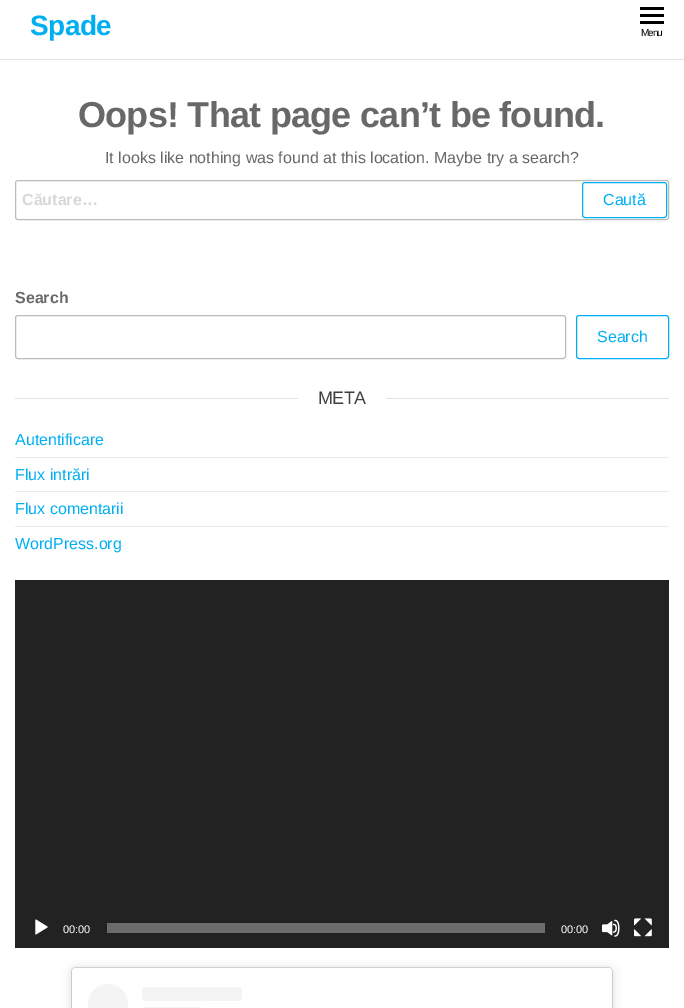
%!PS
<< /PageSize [684 1008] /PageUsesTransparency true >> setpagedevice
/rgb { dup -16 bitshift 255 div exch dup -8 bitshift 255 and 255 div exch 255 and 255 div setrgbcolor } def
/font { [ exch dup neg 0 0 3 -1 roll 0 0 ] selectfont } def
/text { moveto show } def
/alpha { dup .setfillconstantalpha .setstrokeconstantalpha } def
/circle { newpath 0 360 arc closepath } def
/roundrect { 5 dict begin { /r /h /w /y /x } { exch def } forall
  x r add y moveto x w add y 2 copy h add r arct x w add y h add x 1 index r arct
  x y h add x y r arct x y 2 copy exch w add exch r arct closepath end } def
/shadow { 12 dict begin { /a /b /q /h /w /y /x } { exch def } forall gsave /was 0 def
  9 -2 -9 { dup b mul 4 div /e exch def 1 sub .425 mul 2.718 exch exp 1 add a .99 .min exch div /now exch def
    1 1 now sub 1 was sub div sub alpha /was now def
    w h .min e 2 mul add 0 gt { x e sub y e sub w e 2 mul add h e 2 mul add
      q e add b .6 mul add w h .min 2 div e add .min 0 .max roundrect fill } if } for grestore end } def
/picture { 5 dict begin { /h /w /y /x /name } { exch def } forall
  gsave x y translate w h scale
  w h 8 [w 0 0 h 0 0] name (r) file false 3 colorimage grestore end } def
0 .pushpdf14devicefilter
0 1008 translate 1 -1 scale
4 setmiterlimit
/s1 { /LiberationSans-Regular 16 font 16#686868 rgb } def
/s2 { /LiberationSans-Bold 16 font 16#D7D7D7 rgb } def
/s3 { /LiberationSans-Regular 16 font 16#00AFF2 rgb } def
/s4 { /LiberationSans-Bold 16 font 16#686868 rgb } def
/s5 { /LiberationSans-Regular 11 font 16#FFFFFF rgb } def
16#FFFFFF rgb
0 0 684 1008 rectfill
16#E2E2E2 rgb
0 59 684 1 rectfill
/LiberationSans-Bold 28 font
16#00AFF2 rgb
30 35 moveto -0.5 0 (Spade) ashow
16#000000 rgb
640 7 24 3 rectfill
640 14 24 3 rectfill
640 21 24 3 rectfill
/LiberationSans-Regular 10 font
641 36 moveto -1 0 (Menu) ashow
/LiberationSans-Bold 36 font
16#686868 rgb
78 127 moveto -0.75 0 (Oops! That page can’t be found.) ashow
s1
(It looks like nothing was found at this location. Maybe try a search?) 105 163 text
16#BBBBBB rgb
15.5 180.5 653 39 2.5 roundrect stroke
s2
(Căutare…) 22 205 text
16#00AFF2 rgb
582.5 182.5 84 35 2.5 roundrect stroke
s3
(Caută) 603 205 text
s4
(Search) 15 303 text
16#BBBBBB rgb
15.5 315.5 550 43 2.5 roundrect stroke
16#00AFF2 rgb
576.5 315.5 92 43 2.5 roundrect stroke
s3
(Search) 597 342 text
16#E2E2E2 rgb
15 398 654 1 rectfill
16#FFFFFF rgb
298 398 88 1 rectfill
/LiberationSans-Regular 18 font
16#404040 rgb
318 404 moveto -0.5 0 (META) ashow
16#EBEBEB rgb
15 457 654 1 rectfill
s3
(Autentificare) 15 445 text
16#EBEBEB rgb
15 491 654 1 rectfill
s3
(Flux intrări) 15 480 text
16#EBEBEB rgb
15 526 654 1 rectfill
s3
(Flux comentarii) 15 514 text
(WordPress.org) 15 549 text
16#222222 rgb
15 580 654 368 rectfill
(pic1.raw) 35 919 13 16 picture
s5
(00:00) 63 933 text
16#6B6B6B rgb
107 923 438 10 rectfill
s5
(00:00) 561 933 text
(pic2.raw) 602 919 18 18 picture
(pic3.raw) 634 918 18 19 picture
16#000000 rgb
72 969 540 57 3 5 0.15 shadow
72 968 540 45 3 0.5 0.5 shadow
16#FFFFFF rgb
72 968 540 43 3 roundrect fill
16#F4F4F4 rgb
108 1004 20 circle fill
142 987 100 14 4 roundrect fill
142 1007 60 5 4 roundrect fill
.poppdf14devicefilter showpage
